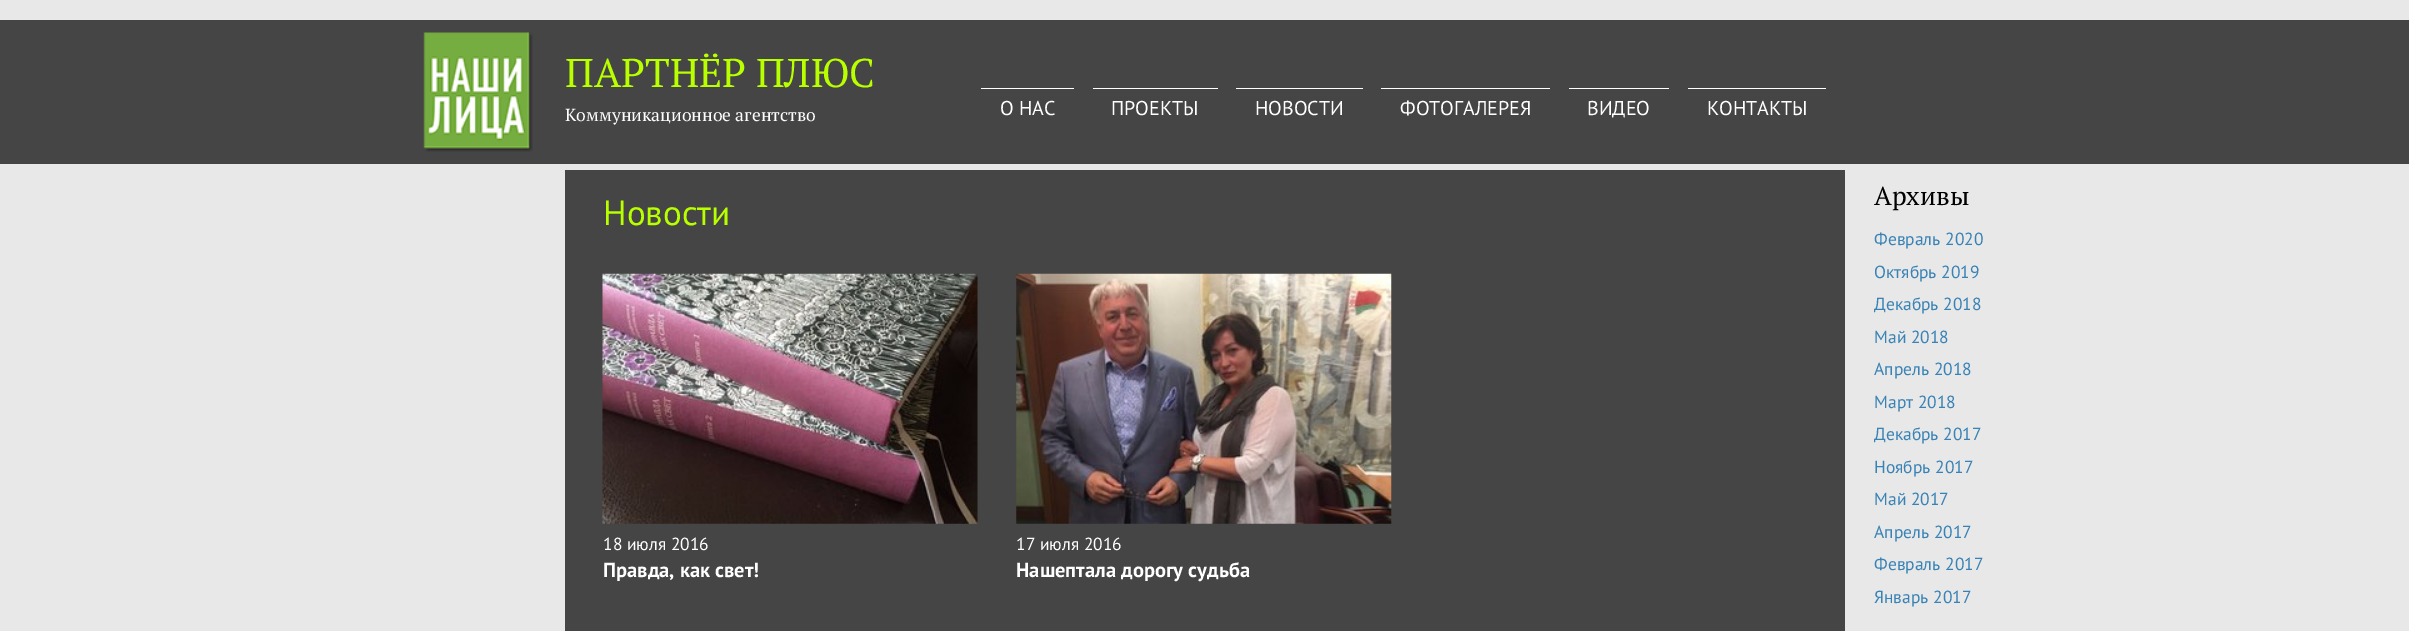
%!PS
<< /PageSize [2409 631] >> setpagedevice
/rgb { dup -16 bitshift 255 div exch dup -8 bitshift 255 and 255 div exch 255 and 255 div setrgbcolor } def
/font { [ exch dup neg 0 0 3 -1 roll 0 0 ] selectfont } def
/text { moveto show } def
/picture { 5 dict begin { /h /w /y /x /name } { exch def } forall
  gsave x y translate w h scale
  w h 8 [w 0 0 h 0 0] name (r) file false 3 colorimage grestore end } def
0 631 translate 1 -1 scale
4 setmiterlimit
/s1 { /PTSerif-Regular 40 font 16#B8FF00 rgb } def
/s2 { /PTSerif-Regular 17.5 font 16#FFFFFF rgb } def
/s3 { /PTSans-Regular 20 font 16#FFFFFF rgb } def
/s4 { /PTSans-Regular 35 font 16#B8FF00 rgb } def
/s5 { /PTSans-Regular 17.5 font 16#FFFFFF rgb } def
/s6 { /PTSans-Bold 20.5 font 16#FFFFFF rgb } def
/s7 { /PTSerif-Regular 26 font 16#000000 rgb } def
/s8 { /PTSans-Regular 17.5 font 16#3882B5 rgb } def
16#E8E8E8 rgb
0 0 2409 631 rectfill
16#454545 rgb
0 20 2409 144 rectfill
(pic1.raw) 423 32 110 120 picture
s1
(ПАРТНЁР ПЛЮС) 565 87 text
s2
(Коммуникационное агентство) 565 121 text
s3
(О НАС) 1000 115 text
981 88 93 1 rectfill
(ПРОЕКТЫ) 1111 115 text
1093 88 125 1 rectfill
(НОВОСТИ) 1255 115 text
1236 88 127 1 rectfill
(ФОТОГАЛЕРЕЯ) 1400 115 text
1381 88 169 1 rectfill
(ВИДЕО) 1587 115 text
1569 88 100 1 rectfill
(КОНТАКТЫ) 1707 115 text
1688 88 138 1 rectfill
16#454545 rgb
565 170 1280 461 rectfill
s4
(Новости) 603 225 text
(pic2.raw) 602 273 376 251 picture
s5
(18 июля 2016) 603 550 text
s6
(Правда, как свет!) 603 577 text
(pic3.raw) 1016 273 376 251 picture
s5
(17 июля 2016) 1016 550 text
s6
(Нашептала дорогу судьба) 1016 577 text
s7
(Архивы) 1874 205 text
s8
(Февраль 2020) 1874 245 text
(Октябрь 2019) 1874 278 text
(Декабрь 2018) 1874 310 text
(Май 2018) 1874 343 text
(Апрель 2018) 1874 375 text
(Март 2018) 1874 408 text
(Декабрь 2017) 1874 440 text
(Ноябрь 2017) 1874 473 text
(Май 2017) 1874 505 text
(Апрель 2017) 1874 538 text
(Февраль 2017) 1874 570 text
(Январь 2017) 1874 603 text
showpage
